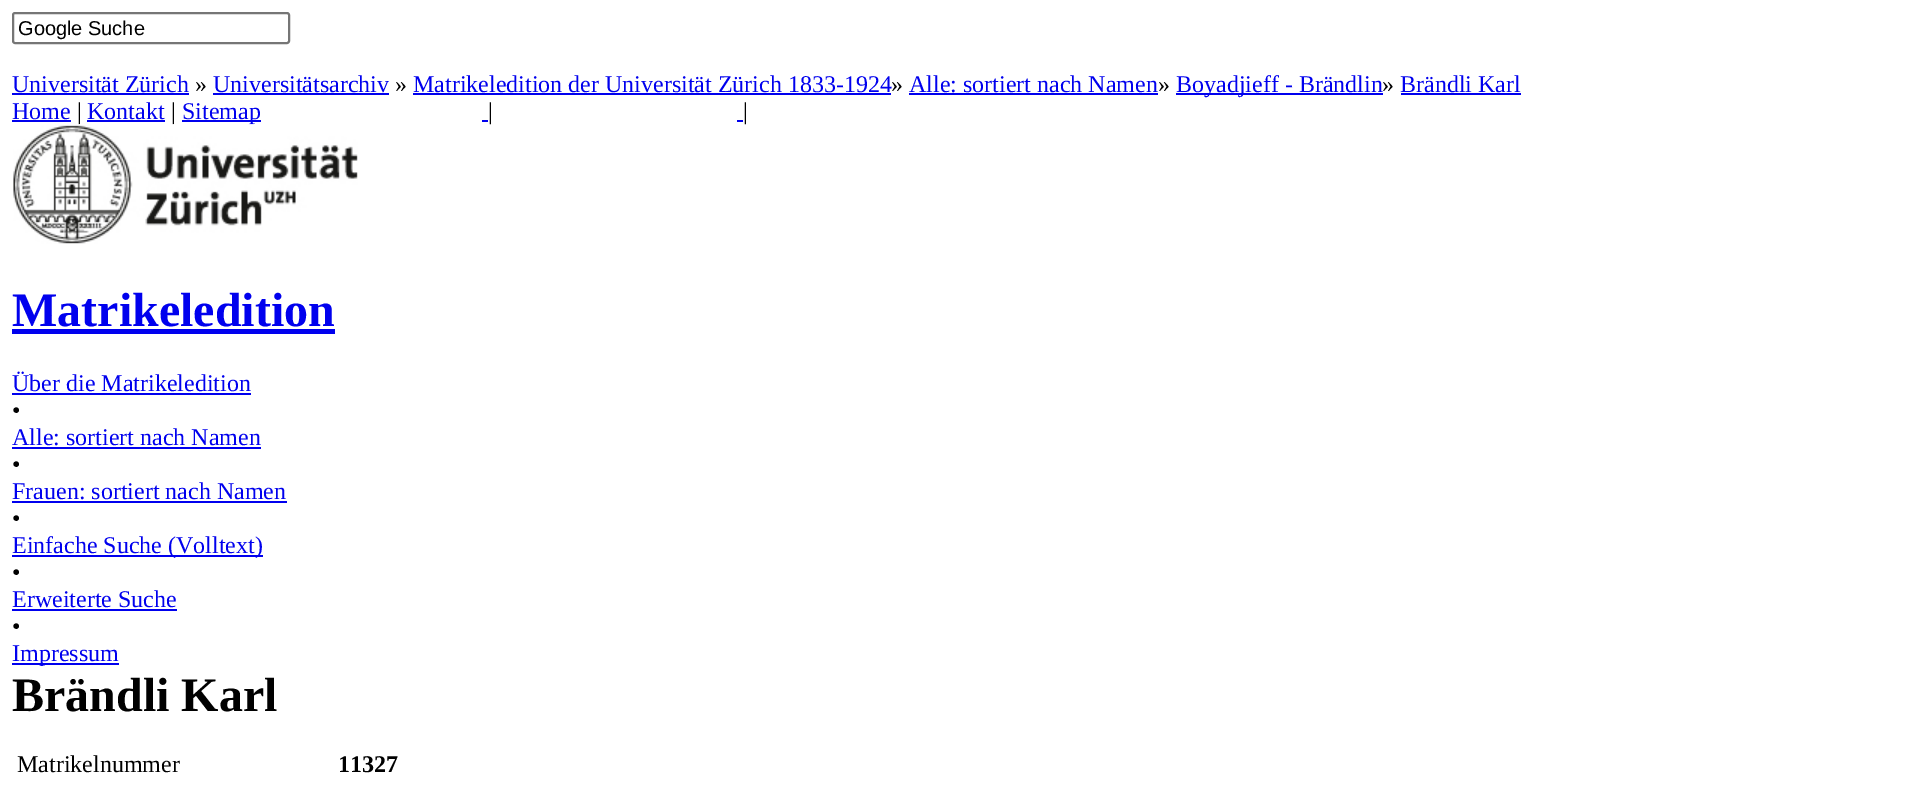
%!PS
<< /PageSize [1926 797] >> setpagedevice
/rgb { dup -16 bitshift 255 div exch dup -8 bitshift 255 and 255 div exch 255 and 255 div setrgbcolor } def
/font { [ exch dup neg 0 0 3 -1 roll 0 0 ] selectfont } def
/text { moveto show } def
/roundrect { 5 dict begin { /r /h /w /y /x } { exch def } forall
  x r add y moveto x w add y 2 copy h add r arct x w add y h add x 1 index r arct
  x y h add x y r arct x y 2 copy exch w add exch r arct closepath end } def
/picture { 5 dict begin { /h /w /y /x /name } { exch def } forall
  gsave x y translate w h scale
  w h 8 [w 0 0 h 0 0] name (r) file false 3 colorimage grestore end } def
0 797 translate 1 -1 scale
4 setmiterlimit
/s1 { /LiberationSans-Regular 20 font 16#000000 rgb } def
/s2 { /LiberationSerif-Regular 24 font 16#0000EE rgb } def
/s3 { /LiberationSerif-Regular 24 font 16#000000 rgb } def
/s4 { /LiberationSerif-Bold 48 font 16#0000EE rgb } def
/s5 { /LiberationSerif-Bold 48 font 16#000000 rgb } def
/s6 { /LiberationSerif-Bold 24 font 16#000000 rgb } def
16#FFFFFF rgb
0 0 1926 797 rectfill
16#767676 rgb
2 setlinewidth
13 13 276 30 2 roundrect stroke
s1
(Google Suche) 18 35 text
s2
(Universität Zürich) 12 92 text
12 93 177 2 rectfill
s3
(») 195 92 text
s2
(Universitätsarchiv) 213 92 text
213 93 176 2 rectfill
s3
(») 395 92 text
s2
(Matrikeledition der Universität Zürich 1833-1924) 413 92 text
413 93 478 2 rectfill
s3
(») 891 92 text
s2
(Alle: sortiert nach Namen) 909 92 text
909 93 249 2 rectfill
s3
(») 1158 92 text
16#0000EE rgb
1176 93 207 2 rectfill
(Boyadjieff - Brändlin) 1176 92 text
s3
(») 1382 92 text
s2
(Brändli Karl) 1400 92 text
1401 93 120 2 rectfill
(Home) 12 119 text
12 120 59 2 rectfill
s3
(|) 77 119 text
s2
(Kontakt) 87 119 text
87 120 78 2 rectfill
s3
(|) 171 119 text
16#0000EE rgb
182 120 79 2 rectfill
(Sitemap) 182 119 text
s3
(|) 488 119 text
16#0000EE rgb
482 120 6 2 rectfill
s3
(|) 743 119 text
16#0000EE rgb
737 120 6 2 rectfill
(pic1.raw) 13 124 345 120 picture
s4
(Matrikeledition) 12 326 text
12 329 323 5 rectfill
s2
(Über die Matrikeledition) 12 391 text
12 393 239 2 rectfill
s3
(•) 12 418 text
s2
(Alle: sortiert nach Namen) 12 445 text
12 447 249 2 rectfill
s3
(•) 12 472 text
s2
(Frauen: sortiert nach Namen) 12 499 text
12 501 275 2 rectfill
s3
(•) 12 526 text
16#0000EE rgb
12 555 251 2 rectfill
(Einfache Suche \(Volltext\)) 12 553 text
s3
(•) 12 580 text
s2
(Erweiterte Suche) 12 607 text
12 609 165 2 rectfill
s3
(•) 12 634 text
16#0000EE rgb
12 663 107 2 rectfill
(Impressum) 12 661 text
s5
(Brändli Karl) 12 711 text
s3
(Matrikelnummer) 17 772 text
s6
(11327) 338 772 text
showpage
